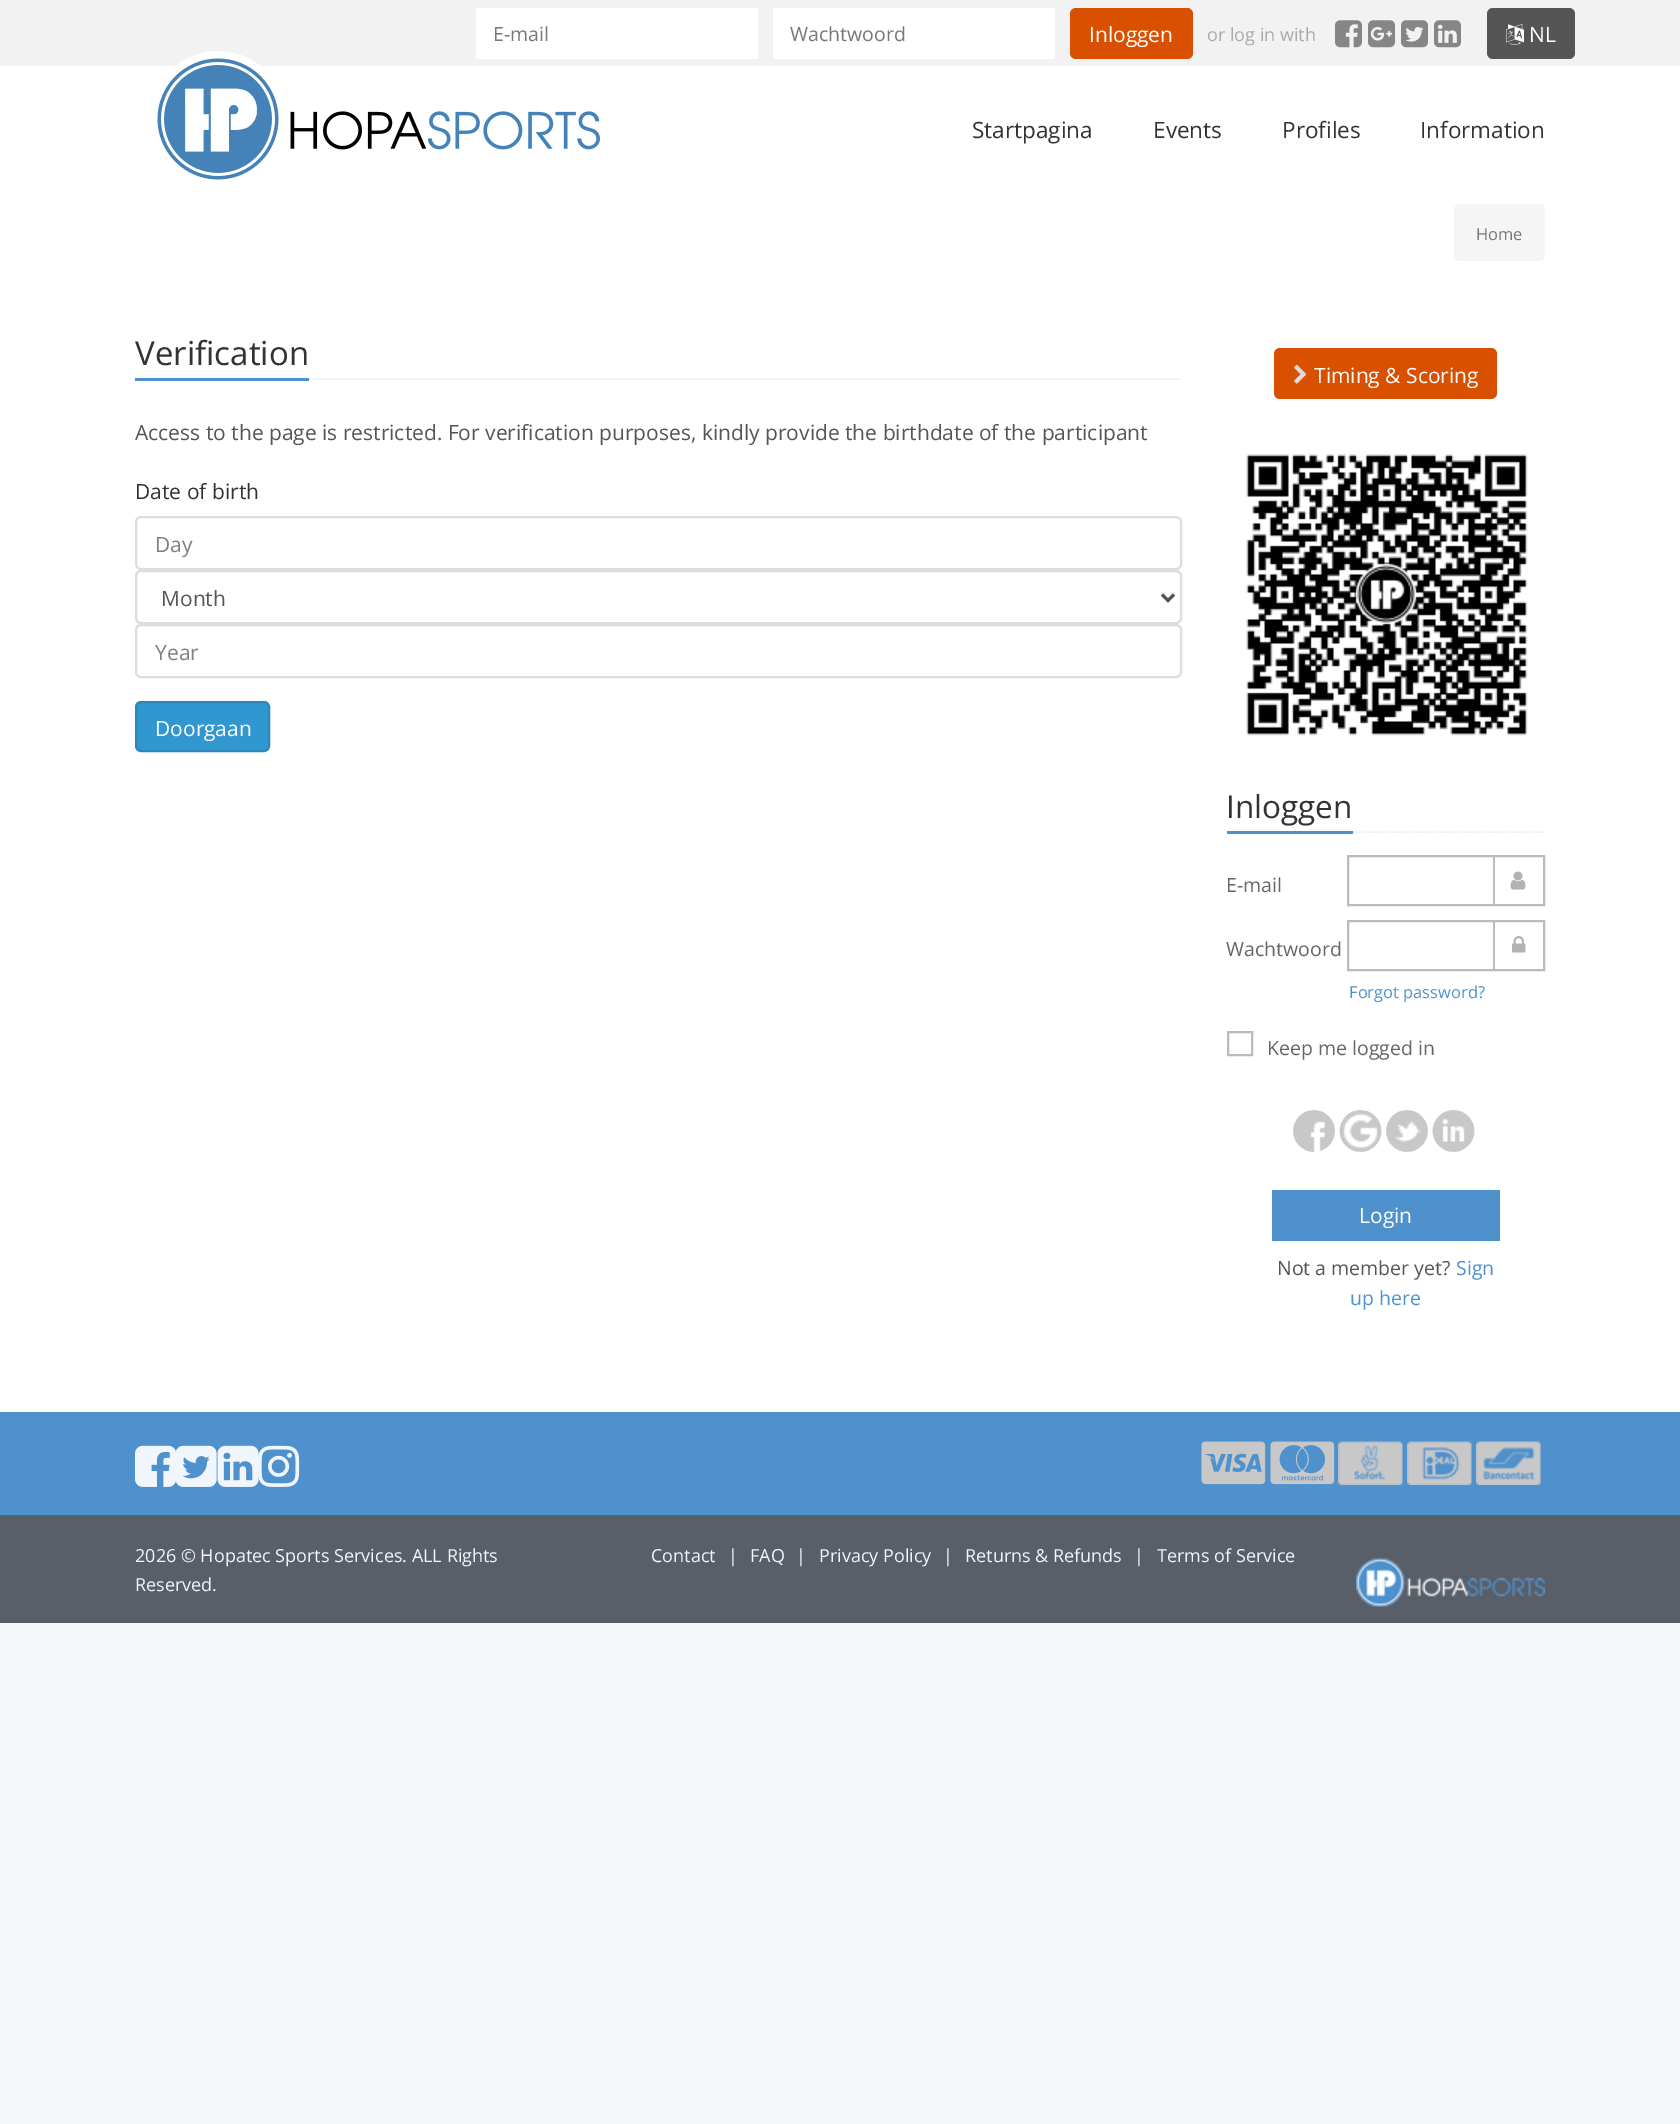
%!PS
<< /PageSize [1680 2124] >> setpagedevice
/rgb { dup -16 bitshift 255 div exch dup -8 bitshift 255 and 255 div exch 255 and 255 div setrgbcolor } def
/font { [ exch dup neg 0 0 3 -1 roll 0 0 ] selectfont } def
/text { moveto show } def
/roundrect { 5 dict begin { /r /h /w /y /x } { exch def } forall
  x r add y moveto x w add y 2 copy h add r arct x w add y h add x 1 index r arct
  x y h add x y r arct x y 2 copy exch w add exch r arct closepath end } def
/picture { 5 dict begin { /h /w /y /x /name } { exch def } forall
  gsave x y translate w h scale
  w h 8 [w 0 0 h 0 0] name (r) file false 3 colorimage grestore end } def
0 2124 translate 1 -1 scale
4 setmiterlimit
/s1 { /OpenSans-Regular 19.5 font 16#777777 rgb } def
/s2 { /OpenSans-Regular 21 font 16#FFFFFF rgb } def
/s3 { /OpenSans-Regular 18 font 16#AAAAAA rgb } def
/s4 { /OpenSans-Regular 22.5 font 16#333333 rgb } def
/s5 { /OpenSans-Regular 16.5 font 16#777777 rgb } def
/s6 { /OpenSans-Regular 33 font 16#333333 rgb } def
/s7 { /OpenSans-Regular 21 font 16#555555 rgb } def
/s8 { /OpenSans-Regular 21 font 16#333333 rgb } def
/s9 { /OpenSans-Regular 21 font 16#808080 rgb } def
/s10 { /OpenSans-Regular 31.5 font 16#333333 rgb } def
/s11 { /OpenSans-Regular 19.5 font 16#666666 rgb } def
/s12 { /OpenSans-Regular 16.5 font 16#4F91CD rgb } def
/s13 { /OpenSans-Regular 19.5 font 16#555555 rgb } def
/s14 { /OpenSans-Regular 19.5 font 16#4F91CD rgb } def
/s15 { /OpenSans-Regular 18 font 16#F0F6FC rgb } def
16#F5F8FA rgb
0 0 1680 2124 rectfill
16#FFFFFF rgb
0 66 1680 1346 rectfill
16#F2F2F2 rgb
0 0 1680 66 rectfill
16#FFFFFF rgb
476 8 282 51 rectfill
s1
(E-mail) 493 41 text
16#FFFFFF rgb
773 8 282 51 rectfill
s1
(Wachtwoord) 790 41 text
16#D95000 rgb
1070 8 123 51 6 roundrect fill
s2
(Inloggen) 1089 42 text
s3
(or log in with) 1207 41 text
(pic1.raw) 1335 20 27 28 picture
(pic2.raw) 1368 20 27 28 picture
(pic3.raw) 1401 20 27 28 picture
(pic4.raw) 1434 20 27 28 picture
16#555555 rgb
1487 8 88 51 6 roundrect fill
(pic5.raw) 1506 24 18 21 picture
s2
(NL) 1529 42 text
(pic6.raw) 157 51 443 129 picture
s4
(Startpagina) 972 138 text
(Events) 1153 138 text
(Profiles) 1282 138 text
(Information) 1420 138 text
16#F5F5F5 rgb
1454 204 91 57 6 roundrect fill
s5
(Home) 1476 240 text
16#E4E9F0 rgb
1.5 setlinewidth
[1.5 1.5] 0 setdash
135 379 moveto 1182 379 lineto stroke
16#4F91CD rgb
135 378 174 3 rectfill
s6
(Verification) 135 365 text
s7
(Access to the page is restricted. For verification purposes, kindly provide the birthdate of the participant) 135 440 text
s8
(Date of birth) 135 499 text
16#DDDDDD rgb
2 setlinewidth
[] 0 setdash
136 517 1045 52 5 roundrect stroke
s9
(Day) 155 552 text
16#DDDDDD rgb
136 571 1045 52 5 roundrect stroke
16#555555 rgb
3 setlinewidth
1162 594.5 moveto 1168 600.5 lineto 1174 594.5 lineto stroke
(Month) 161 606 text
16#DDDDDD rgb
2 setlinewidth
136 625 1045 52 5 roundrect stroke
s9
(Year) 155 660 text
16#3097D1 rgb
136 702 133 49 5 roundrect gsave fill grestore
16#2A88BD rgb
stroke
s2
(Doorgaan) 155 736 text
16#D95000 rgb
1274 348 223 51 6 roundrect fill
(pic7.raw) 1294 364 13 20 picture
s2
(Timing & Scoring) 1314 383 text
(pic8.raw) 1246 454 282 282 picture
16#E4E9F0 rgb
1.5 setlinewidth
[1.5 1.5] 0 setdash
1227 832 moveto 1545 832 lineto stroke
16#4F91CD rgb
1227 831 126 3 rectfill
s10
(Inloggen) 1226 818 text
s11
(E-mail) 1226 892 text
16#BBBBBB rgb
2 setlinewidth
[] 0 setdash
1348 856 196 49 rectstroke
1493 857 2 48 rectfill
(pic9.raw) 1510 871 16 19 picture
s11
(Wachtwoord) 1226 956 text
16#BBBBBB rgb
1348 921 196 49 rectstroke
1493 921 2 48 rectfill
(pic10.raw) 1512 936 14 17 picture
s12
(Forgot password?) 1349 998 text
16#BBBBBB rgb
1228 1032 24 23 rectstroke
s11
(Keep me logged in) 1267 1055 text
(pic11.raw) 1293 1110 42 42 picture
(pic12.raw) 1339 1110 43 42 picture
(pic13.raw) 1386 1110 42 42 picture
(pic14.raw) 1432 1110 43 42 picture
16#4F91CD rgb
1272 1190 228 51 rectfill
s2
(Login) 1359 1223 text
s13
(Not a member yet?) 1277 1275 text
s14
(Sign) 1456 1275 text
(up here) 1350 1305 text
0 1412 1680 103 rectfill
(pic15.raw) 135 1445 41 42 picture
(pic16.raw) 175 1445 42 42 picture
(pic17.raw) 217 1445 42 42 picture
(pic18.raw) 258 1445 42 42 picture
(pic19.raw) 1201 1441 65 44 picture
(pic20.raw) 1270 1441 65 44 picture
(pic21.raw) 1338 1441 65 44 picture
(pic22.raw) 1407 1441 65 44 picture
(pic23.raw) 1476 1441 65 44 picture
16#585F69 rgb
0 1515 1680 108 rectfill
s15
(2026 © Hopatec Sports Services. ALL Rights) 135 1562 text
(Reserved.) 135 1591 text
(Contact) 651 1562 text
(|) 728 1562 text
(FAQ) 750 1562 text
(|) 796 1562 text
(Privacy Policy) 819 1562 text
(|) 943 1562 text
(Returns & Refunds) 965 1562 text
(|) 1134 1562 text
(Terms of Service) 1157 1562 text
(pic24.raw) 1356 1558 189 49 picture
showpage
